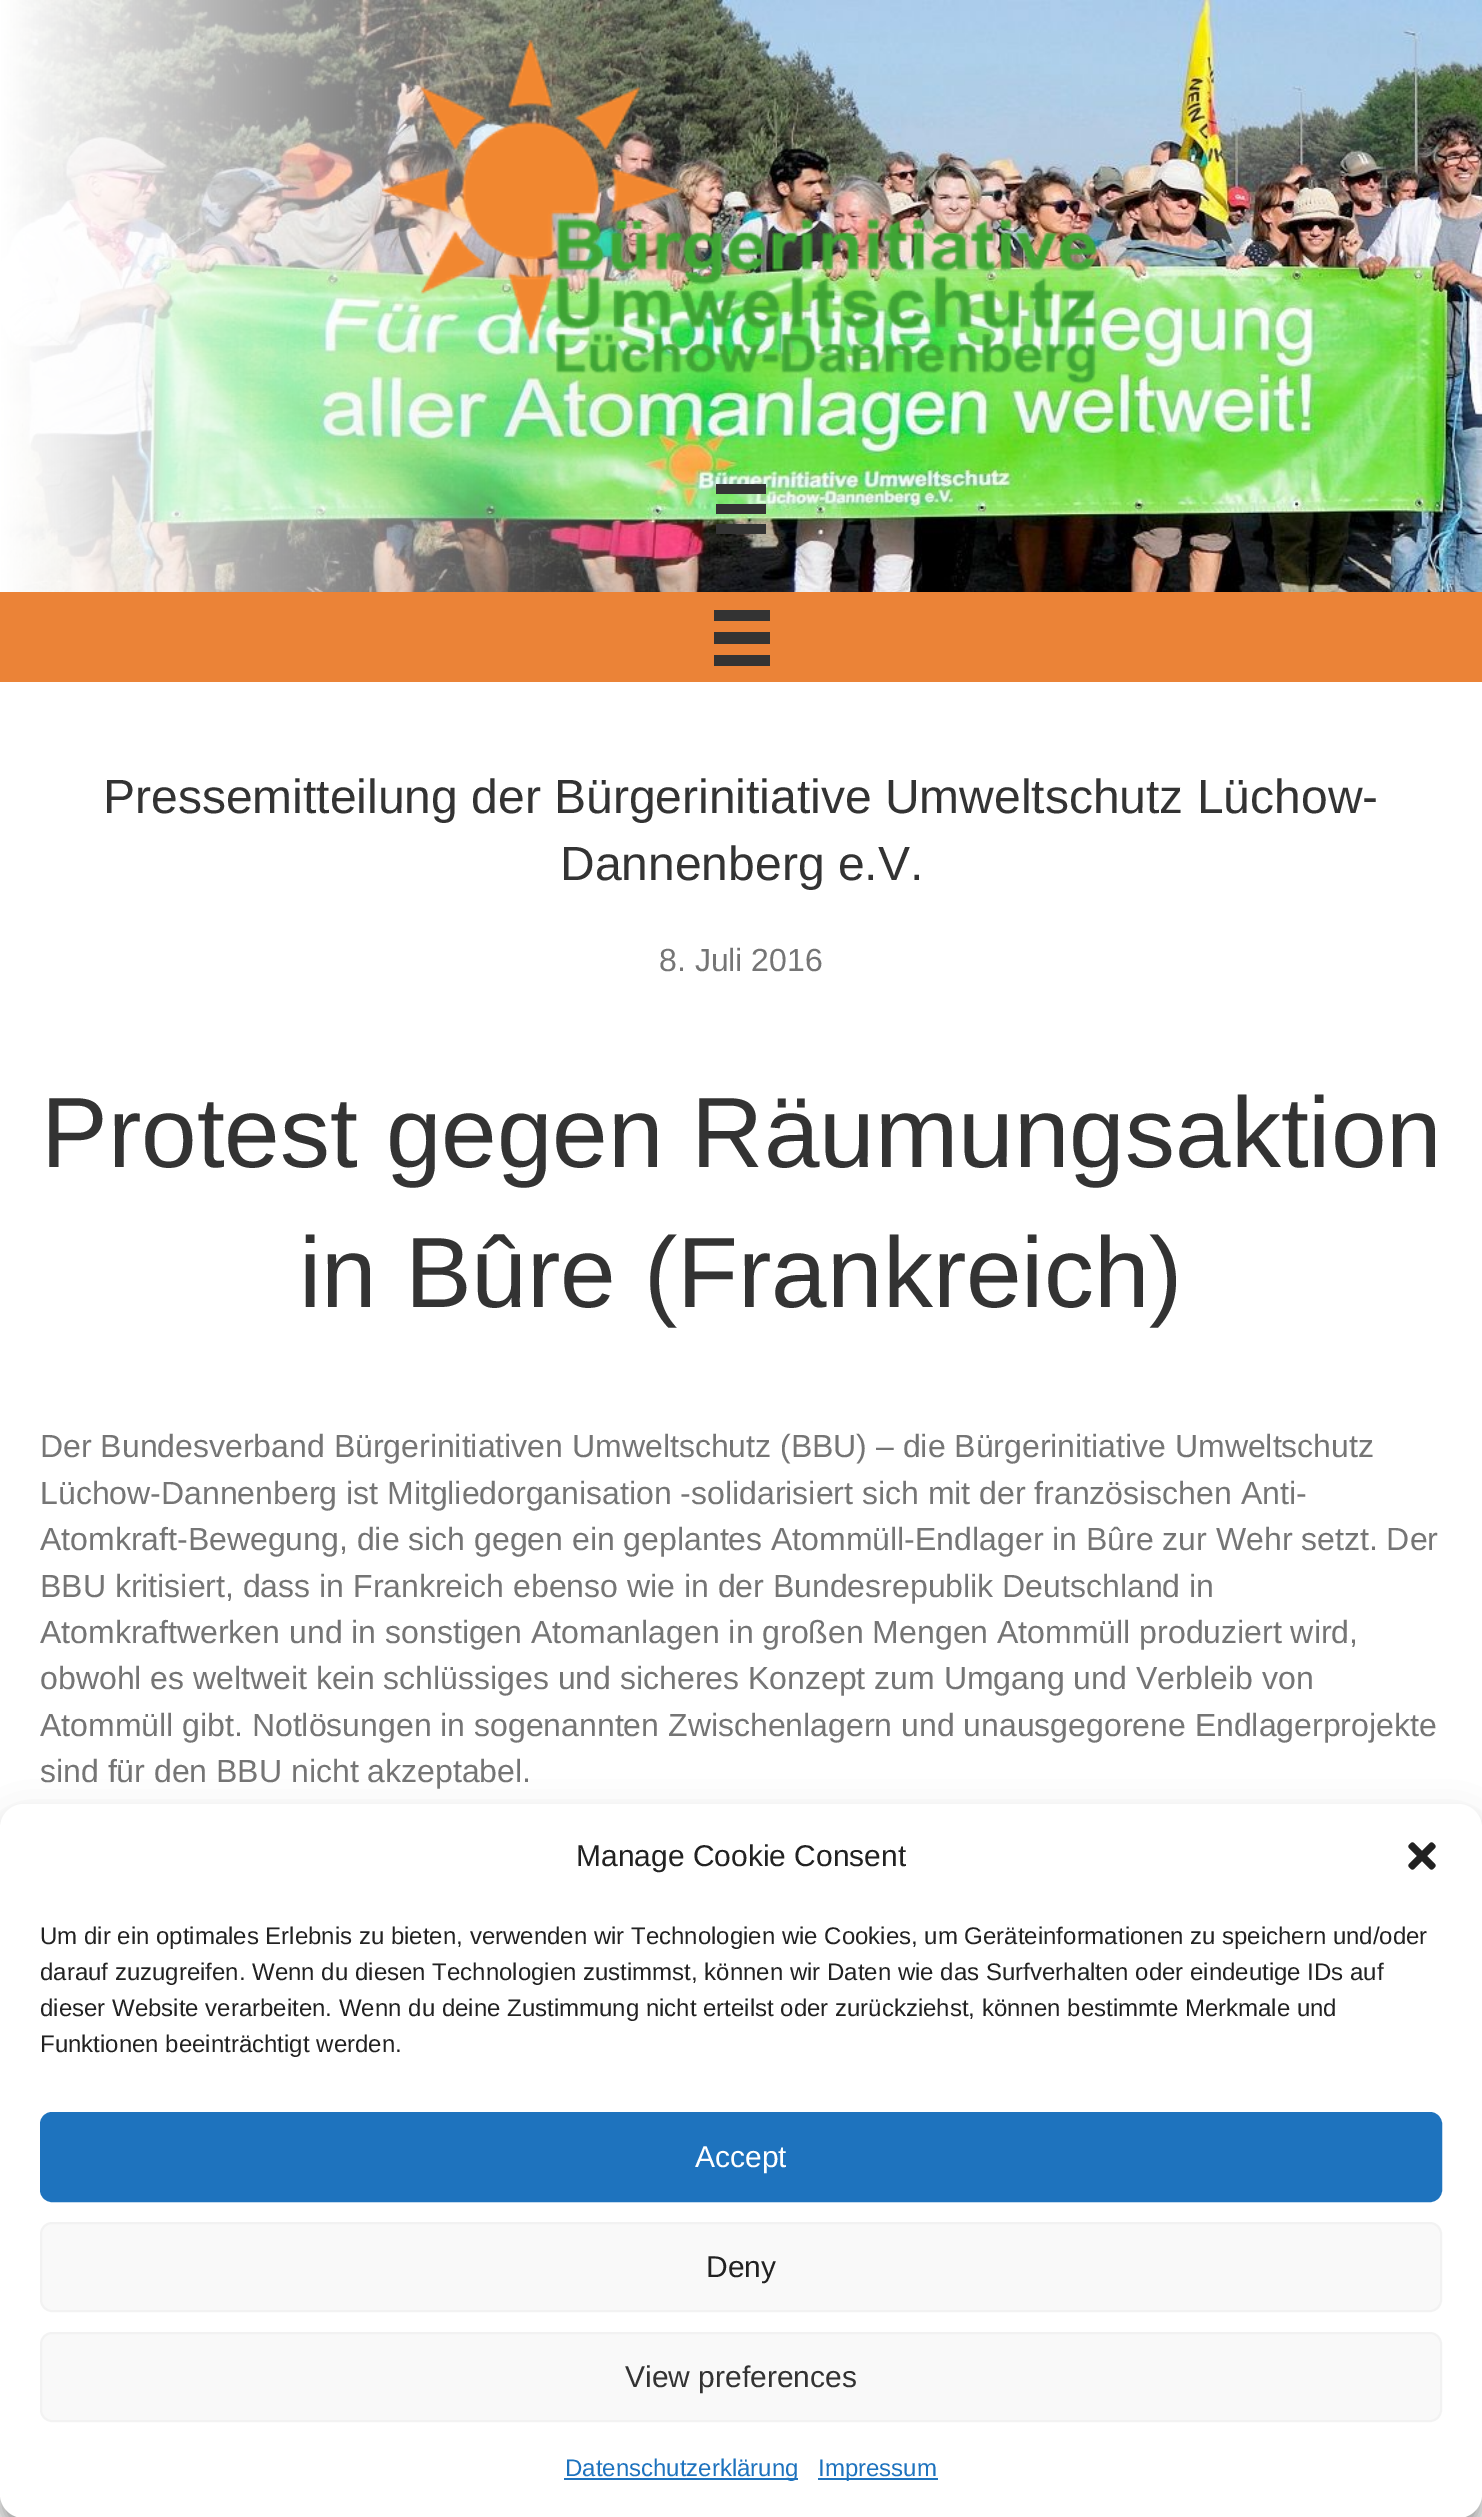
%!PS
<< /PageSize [1482 2517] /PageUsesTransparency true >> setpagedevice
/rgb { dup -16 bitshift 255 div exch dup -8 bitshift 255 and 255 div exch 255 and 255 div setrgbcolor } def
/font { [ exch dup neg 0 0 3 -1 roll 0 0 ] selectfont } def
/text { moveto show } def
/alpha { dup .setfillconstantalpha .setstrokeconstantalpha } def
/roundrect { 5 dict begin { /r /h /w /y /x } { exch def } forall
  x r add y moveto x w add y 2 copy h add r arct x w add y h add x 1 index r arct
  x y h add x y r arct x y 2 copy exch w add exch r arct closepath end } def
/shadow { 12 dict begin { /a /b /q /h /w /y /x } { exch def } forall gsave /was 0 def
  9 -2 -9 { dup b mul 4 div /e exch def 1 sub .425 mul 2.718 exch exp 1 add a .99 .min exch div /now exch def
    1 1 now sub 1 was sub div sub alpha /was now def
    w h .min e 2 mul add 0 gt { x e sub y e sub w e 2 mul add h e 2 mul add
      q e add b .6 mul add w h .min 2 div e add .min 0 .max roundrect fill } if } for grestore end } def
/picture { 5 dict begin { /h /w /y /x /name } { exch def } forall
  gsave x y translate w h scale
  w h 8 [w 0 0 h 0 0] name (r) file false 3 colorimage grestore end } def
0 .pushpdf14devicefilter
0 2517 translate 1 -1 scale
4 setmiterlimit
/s1 { /LiberationSans-Regular 48 font 16#333333 rgb } def
/s2 { /LiberationSans-Regular 32 font 16#757575 rgb } def
/s3 { /LiberationSans-Regular 100 font 16#333333 rgb } def
/s4 { /LiberationSans-Regular 30 font 16#222222 rgb } def
/s5 { /LiberationSans-Regular 24 font 16#222222 rgb } def
/s6 { /LiberationSans-Regular 30 font 16#FFFFFF rgb } def
/s7 { /LiberationSans-Regular 30 font 16#333333 rgb } def
/s8 { /LiberationSans-Regular 24 font 16#1E73BE rgb } def
16#FFFFFF rgb
0 0 1482 2517 rectfill
(pic1.raw) 0 0 1482 592 picture
(pic2.raw) 382 40 715 345 picture
16#333333 rgb
716 484 50 10 rectfill
716 504 50 10 rectfill
716 524 50 10 rectfill
16#EB8337 rgb
0 592 1482 90 rectfill
16#333333 rgb
714 610 56 11 rectfill
714 632 56 12 rectfill
714 655 56 11 rectfill
s1
(Pressemitteilung der Bürgerinitiative Umweltschutz Lüchow-) 103 813 text
(Dannenberg e.V.) 560 880 text
s2
(8. Juli 2016) 659 971 text
s3
(Protest gegen Räumungsaktion) 41 1167 text
(in Bûre \(Frankreich\)) 299 1307 text
s2
(Der Bundesverband Bürgerinitiativen Umweltschutz \(BBU\) – die Bürgerinitiative Umweltschutz) 40 1457 text
(Lüchow-Dannenberg ist Mitgliedorganisation -solidarisiert sich mit der französischen Anti-) 40 1504 text
(Atomkraft-Bewegung, die sich gegen ein geplantes Atommüll-Endlager in Bûre zur Wehr setzt. Der) 40 1550 text
(BBU kritisiert, dass in Frankreich ebenso wie in der Bundesrepublik Deutschland in) 40 1597 text
(Atomkraftwerken und in sonstigen Atomanlagen in großen Mengen Atommüll produziert wird,) 40 1643 text
(obwohl es weltweit kein schlüssiges und sicheres Konzept zum Umgang und Verbleib von) 40 1689 text
(Atommüll gibt. Notlösungen in sogenannten Zwischenlagern und unausgegorene Endlagerprojekte) 40 1736 text
(sind für den BBU nicht akzeptabel.) 40 1782 text
16#000000 rgb
0 1816 1482 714 24 6 0.23 shadow
0 1824 1482 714 24 20 0.19 shadow
16#FFFFFF rgb
0 1804 1482 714 24 roundrect fill
s4
(Manage Cookie Consent) 576 1866 text
(pic3.raw) 1408 1842 28 28 picture
s5
(Um dir ein optimales Erlebnis zu bieten, verwenden wir Technologien wie Cookies, um Geräteinformationen zu speichern und/oder) 40 1944 text
(darauf zuzugreifen. Wenn du diesen Technologien zustimmst, können wir Daten wie das Surfverhalten oder eindeutige IDs auf) 40 1980 text
(dieser Website verarbeiten. Wenn du deine Zustimmung nicht erteilst oder zurückziehst, können bestimmte Merkmale und) 40 2016 text
(Funktionen beeinträchtigt werden.) 40 2052 text
16#1E73BE rgb
41 2113 1400 88 11 roundrect gsave fill grestore
2 setlinewidth
stroke
s6
(Accept) 695 2167 text
16#F9F9F9 rgb
41 2223 1400 88 11 roundrect gsave fill grestore
16#F2F2F2 rgb
stroke
s4
(Deny) 706 2277 text
16#F9F9F9 rgb
41 2333 1400 88 11 roundrect gsave fill grestore
16#F2F2F2 rgb
stroke
s7
(View preferences) 625 2387 text
16#1E73BE rgb
564 2478 234 2 rectfill
s8
(Datenschutzerklärung) 565 2476 text
818 2478 120 2 rectfill
(Impressum) 818 2476 text
.poppdf14devicefilter showpage
